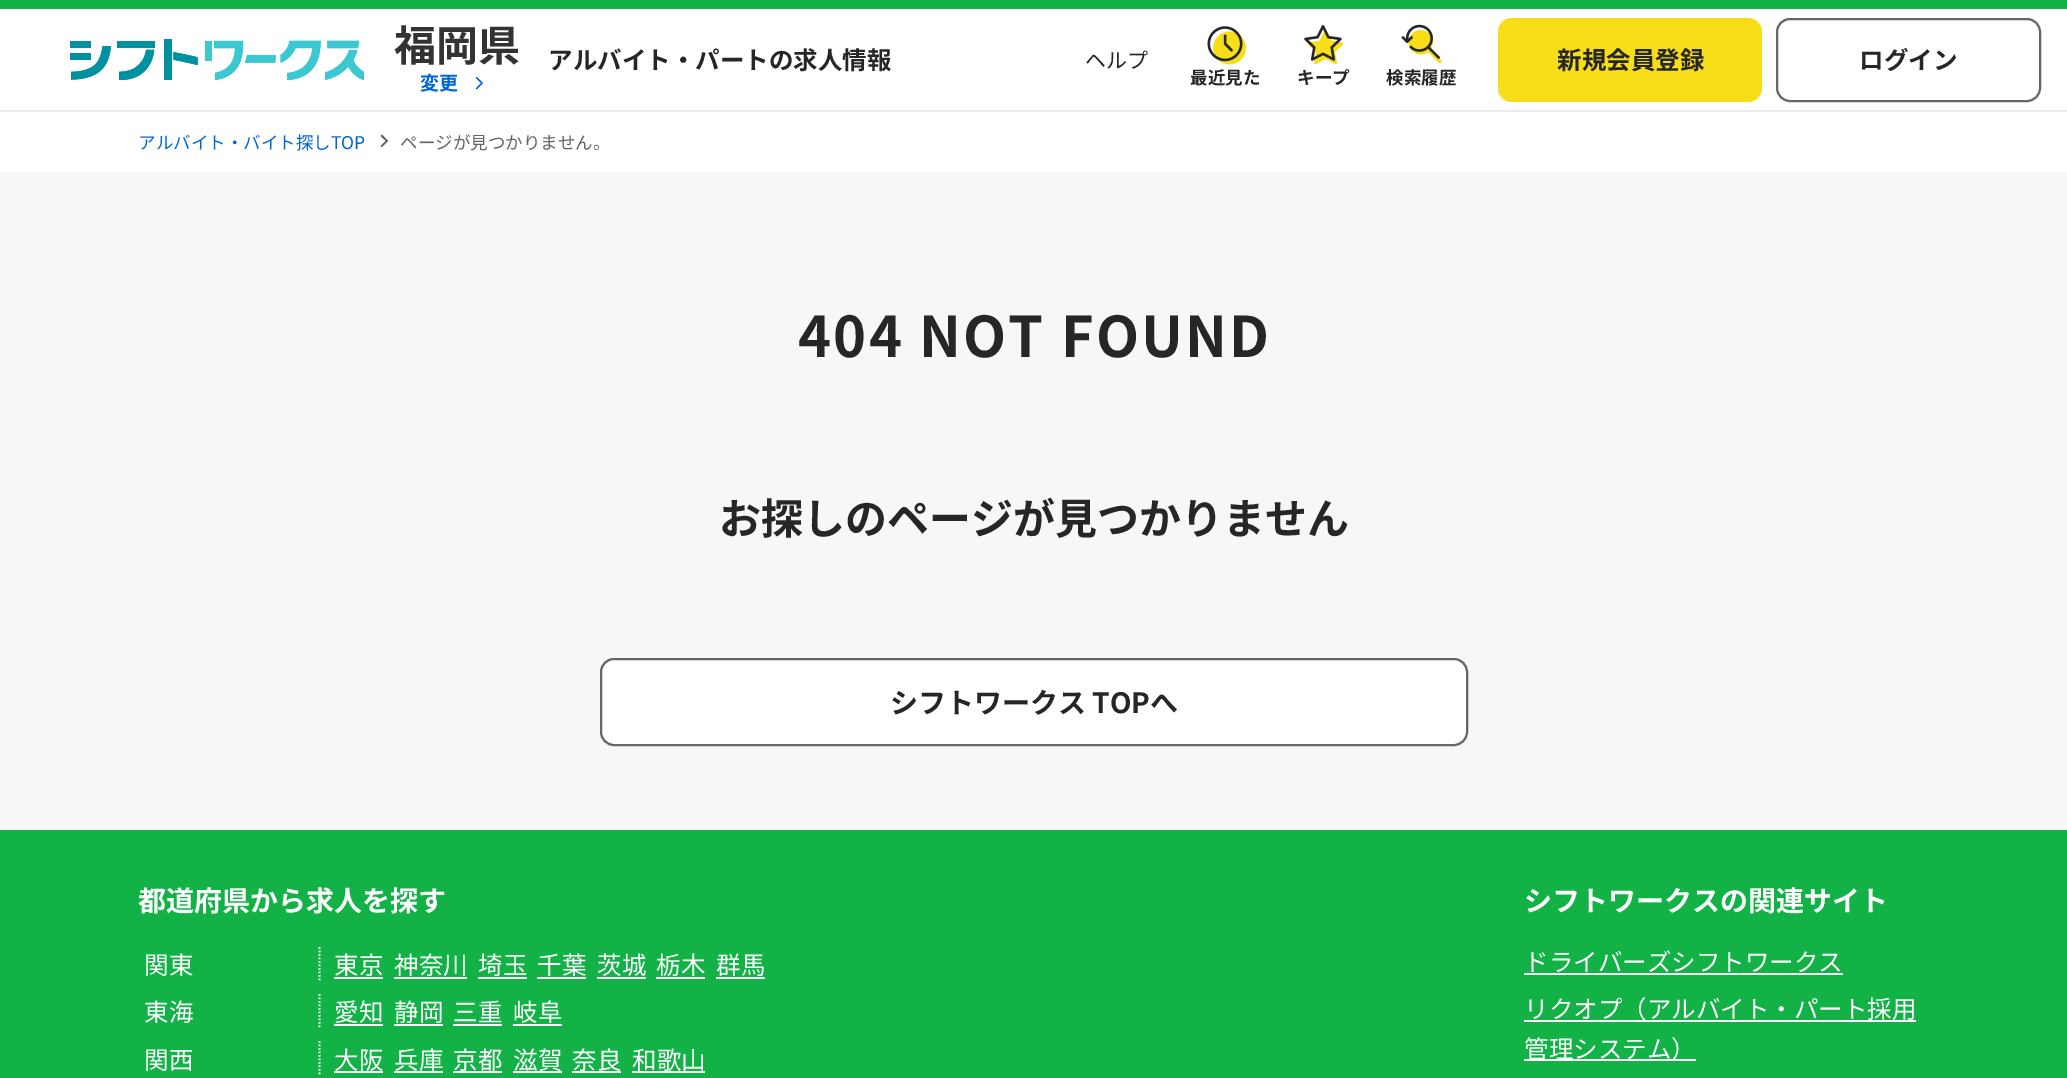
%!PS
<< /PageSize [2067 1078] >> setpagedevice
/rgb { dup -16 bitshift 255 div exch dup -8 bitshift 255 and 255 div exch 255 and 255 div setrgbcolor } def
/font { [ exch dup neg 0 0 3 -1 roll 0 0 ] selectfont } def
/text { moveto show } def
/roundrect { 5 dict begin { /r /h /w /y /x } { exch def } forall
  x r add y moveto x w add y 2 copy h add r arct x w add y h add x 1 index r arct
  x y h add x y r arct x y 2 copy exch w add exch r arct closepath end } def
/picture { 5 dict begin { /h /w /y /x /name } { exch def } forall
  gsave x y translate w h scale
  w h 8 [w 0 0 h 0 0] name (r) file false 3 colorimage grestore end } def
0 1078 translate 1 -1 scale
4 setmiterlimit
/s1 { /NotoSansJP-Bold 42 font 16#333333 rgb } def
/s2 { /NotoSansJP-Bold 19 font 16#0066D2 rgb } def
/s3 { /NotoSansJP-Bold 24.5 font 16#262626 rgb } def
/s4 { /NotoSansJP-Regular 21 font 16#262626 rgb } def
/s5 { /NotoSansJP-Bold 17.5 font 16#262626 rgb } def
/s6 { /NotoSansJP-Regular 17.5 font 16#0066D2 rgb } def
/s7 { /NotoSansJP-Regular 17.5 font 16#626463 rgb } def
/s8 { /NotoSansJP-Bold 42 font 16#262626 rgb } def
/s9 { /NotoSansJP-Bold 28 font 16#262626 rgb } def
/s10 { /NotoSansJP-Bold 28 font 16#FFFFFF rgb } def
/s11 { /NotoSansJP-Regular 24.5 font 16#FFFFFF rgb } def
16#FFFFFF rgb
0 0 2067 1078 rectfill
16#EBEBEB rgb
0 110 2067 2 rectfill
16#12B247 rgb
0 0 2067 9 rectfill
(pic1.raw) 70 39 294 41 picture
s1
(福岡県) 394 61 text
s2
(変更) 420 90 text
(pic2.raw) 475 76 8 14 picture
s3
(アルバイト・パートの求人情報) 548 69 text
s4
(ヘルプ) 1085 68 text
16#F7DE19 rgb
1498 18 264 84 14 roundrect fill
s3
(新規会員登録) 1557 69 text
16#666666 rgb
2 setlinewidth
1777 19 263 82 13 roundrect stroke
s3
(ログイン) 1859 69 text
(pic3.raw) 1207 26 39 39 picture
s5
(最近見た) 1190 84 text
(pic4.raw) 1304 25 40 40 picture
(キープ) 1297 84 text
(pic5.raw) 1401 24 41 40 picture
(検索履歴) 1386 84 text
s6
(アルバイト・バイト探しTOP) 138 149 text
16#626463 rgb
380.5 136 moveto 382 134.5 lineto 388 141 lineto 387 142 lineto closepath fill
380.5 146 moveto 387 139.5 lineto 388 141 lineto 382 147 lineto closepath fill
(ページが見つかりません。) 400 149 text
16#F7F7F7 rgb
0 172 2067 658 rectfill
/NotoSansJP-Bold 56 font
16#262626 rgb
798 357 moveto 2.25 0 (404 NOT FOUND) ashow
s8
(お探しのページが見つかりません) 719 534 text
16#FFFFFF rgb
601 659 866 86 13 roundrect gsave fill grestore
16#666666 rgb
stroke
s9
(シフトワークス TOPへ) 890 713 text
16#12B247 rgb
0 830 2067 248 rectfill
s10
(都道府県から求人を探す) 138 911 text
s11
(関東) 144 974 text
(東海) 144 1021 text
(関西) 144 1069 text
1.8 setlinewidth
[1.75 1.75] 0 setdash
319.5 947 moveto 319.5 982 lineto stroke
(東京) 334 974 text
334 977 49 2 rectfill
(神奈川) 394 974 text
394 977 73 2 rectfill
(埼玉) 478 974 text
478 977 49 2 rectfill
(千葉) 537 974 text
537 977 49 2 rectfill
(茨城) 597 974 text
597 977 49 2 rectfill
(栃木) 656 974 text
656 977 49 2 rectfill
(群馬) 716 974 text
716 977 49 2 rectfill
319.5 994 moveto 319.5 1029 lineto stroke
(愛知) 334 1021 text
334 1024 49 2 rectfill
(静岡) 394 1021 text
394 1024 49 2 rectfill
(三重) 453 1021 text
453 1024 49 2 rectfill
(岐阜) 513 1021 text
513 1024 49 2 rectfill
319.5 1041 moveto 319.5 1076 lineto stroke
(大阪) 334 1069 text
334 1071 49 2 rectfill
(兵庫) 394 1069 text
394 1071 49 2 rectfill
(京都) 453 1069 text
453 1071 49 2 rectfill
(滋賀) 513 1069 text
513 1071 49 2 rectfill
(奈良) 572 1069 text
572 1071 49 2 rectfill
(和歌山) 632 1069 text
632 1071 73 2 rectfill
s10
(シフトワークスの関連サイト) 1524 911 text
s11
(ドライバーズシフトワークス) 1524 971 text
1524 973 319 2 rectfill
1524 1020 392 2 rectfill
(リクオプ（アルバイト・パート採用) 1524 1018 text
1524 1059 172 2 rectfill
(管理システム）) 1524 1058 text
showpage
